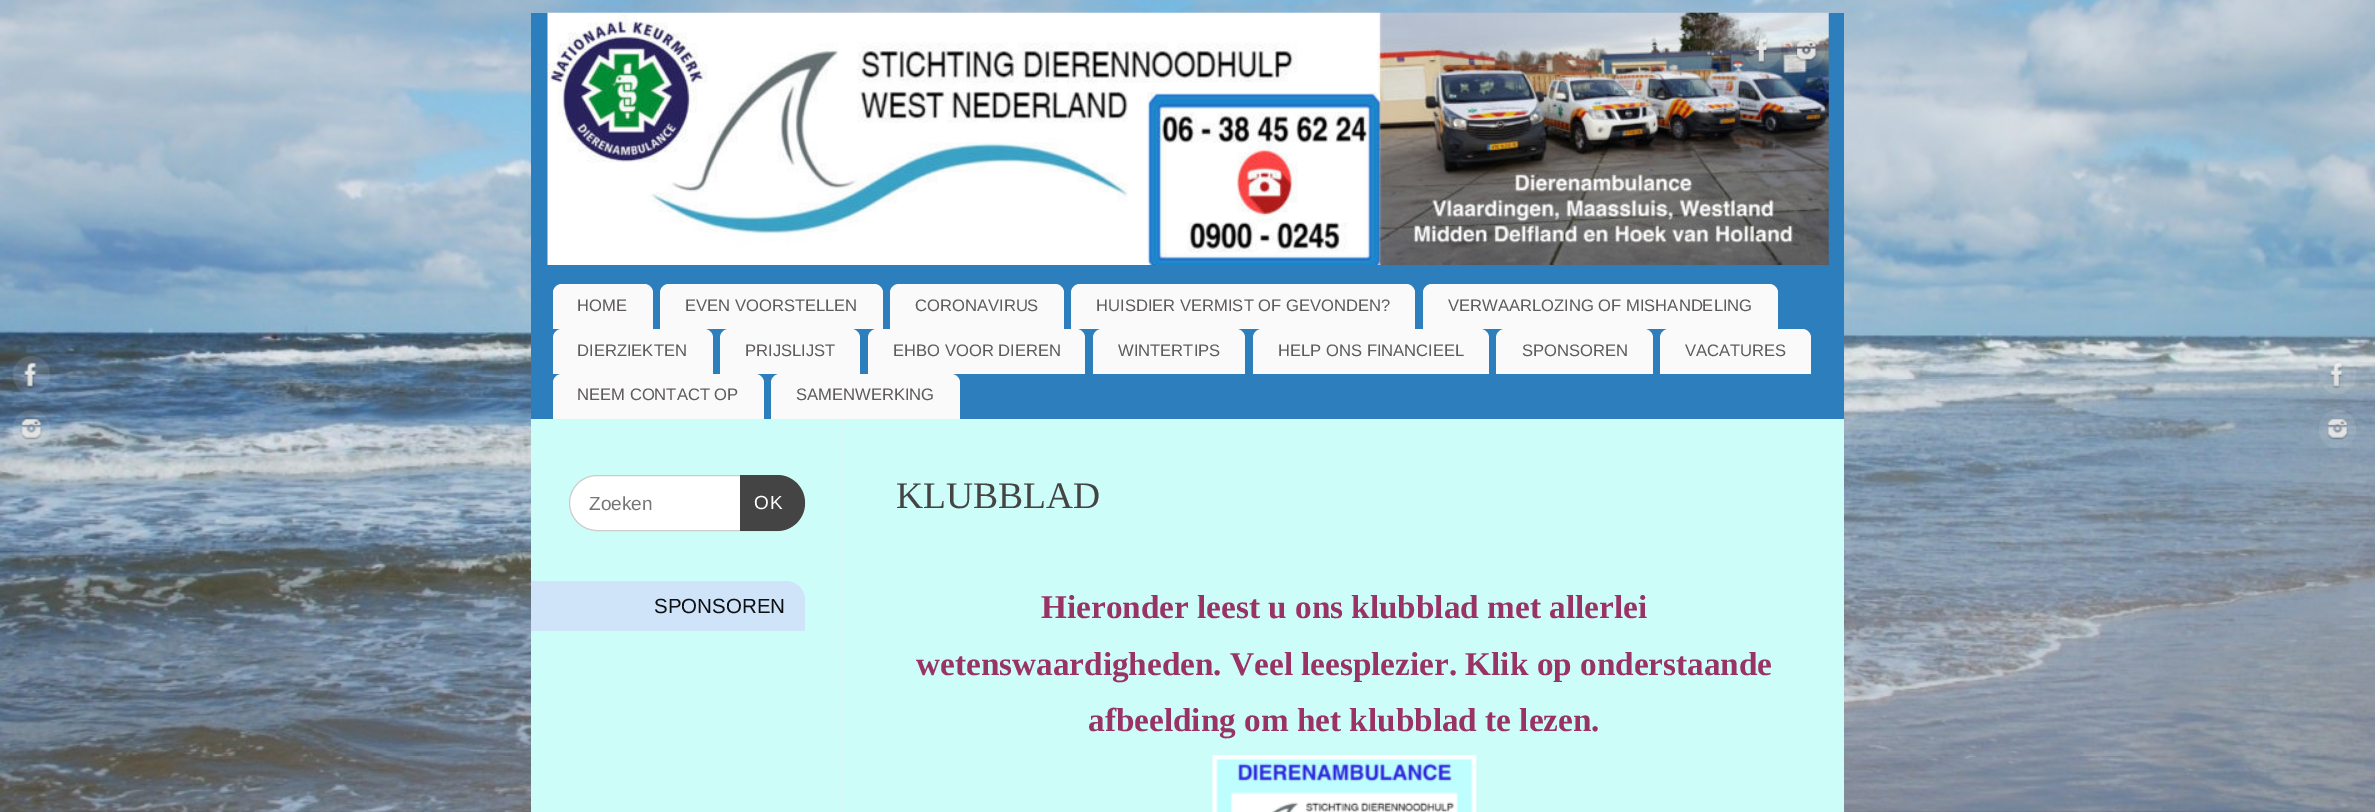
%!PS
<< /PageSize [2375 812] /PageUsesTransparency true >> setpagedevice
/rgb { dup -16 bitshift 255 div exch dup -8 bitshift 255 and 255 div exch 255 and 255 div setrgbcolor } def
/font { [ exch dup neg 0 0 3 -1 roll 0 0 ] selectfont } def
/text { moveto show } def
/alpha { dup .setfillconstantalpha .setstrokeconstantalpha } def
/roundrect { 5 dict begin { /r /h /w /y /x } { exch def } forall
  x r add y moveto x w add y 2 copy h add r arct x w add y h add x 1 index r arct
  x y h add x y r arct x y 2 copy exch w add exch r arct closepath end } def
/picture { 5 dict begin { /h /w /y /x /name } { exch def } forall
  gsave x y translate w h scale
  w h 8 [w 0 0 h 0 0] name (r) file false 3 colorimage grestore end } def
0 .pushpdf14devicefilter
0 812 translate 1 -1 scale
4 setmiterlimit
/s1 { /LiberationSans-Regular 16.6 font 16#5F5B5B rgb } def
/s2 { /LiberationSans-Regular 19 font 16#757575 rgb } def
/s3 { /LiberationSans-Regular 20.5 font 16#0E1113 rgb } def
/s4 { /LiberationSerif-Regular 37.5 font 16#444444 rgb } def
/s5 { /LiberationSerif-Bold 33.25 font 16#993366 rgb } def
16#FFFFFF rgb
0 0 2375 812 rectfill
(pic1.raw) 0 0 2375 812 picture
16#2C7EBC rgb
531 13 1313 406 rectfill
(pic2.raw) 547 12 1282 253 picture
0.1 alpha
16#FFFFFF rgb
1744 31 37 38 18.5 roundrect fill
1 alpha
(pic3.raw) 1755 38 13 26 picture
0.1 alpha
1788 31 37 38 18.5 roundrect fill
1 alpha
(pic4.raw) 1796 40 21 22 picture
16#FAFAFA rgb
562 284 moveto 644 284 lineto 649 284 653 288 653 293 curveto 653 329 lineto 553 329 lineto 553 293 lineto 553 288 557 284 562 284 curveto closepath fill
s1
(HOME) 577 311 text
16#FAFAFA rgb
669 284 moveto 874 284 lineto 879 284 883 288 883 293 curveto 883 329 lineto 660 329 lineto 660 293 lineto 660 288 664 284 669 284 curveto closepath fill
s1
(EVEN VOORSTELLEN) 685 311 text
16#FAFAFA rgb
899 284 moveto 1055 284 lineto 1060 284 1064 288 1064 293 curveto 1064 329 lineto 890 329 lineto 890 293 lineto 890 288 894 284 899 284 curveto closepath fill
s1
(CORONAVIRUS) 915 311 text
16#FAFAFA rgb
1080 284 moveto 1406 284 lineto 1411 284 1415 288 1415 293 curveto 1415 329 lineto 1071 329 lineto 1071 293 lineto 1071 288 1075 284 1080 284 curveto closepath fill
s1
(HUISDIER VERMIST OF GEVONDEN?) 1096 311 text
16#FAFAFA rgb
1432 284 moveto 1769 284 lineto 1774 284 1778 288 1778 293 curveto 1778 329 lineto 1423 329 lineto 1423 293 lineto 1423 288 1427 284 1432 284 curveto closepath fill
s1
(VERWAARLOZING OF MISHANDELING) 1448 311 text
16#FAFAFA rgb
562 329 moveto 704 329 lineto 709 329 713 333 713 338 curveto 713 374 lineto 553 374 lineto 553 338 lineto 553 333 557 329 562 329 curveto closepath fill
s1
(DIERZIEKTEN) 577 356 text
16#FAFAFA rgb
729 329 moveto 851 329 lineto 856 329 860 333 860 338 curveto 860 374 lineto 720 374 lineto 720 338 lineto 720 333 724 329 729 329 curveto closepath fill
s1
(PRIJSLIJST) 745 356 text
16#FAFAFA rgb
877 329 moveto 1076 329 lineto 1081 329 1085 333 1085 338 curveto 1085 374 lineto 868 374 lineto 868 338 lineto 868 333 872 329 877 329 curveto closepath fill
s1
(EHBO VOOR DIEREN) 893 356 text
16#FAFAFA rgb
1102 329 moveto 1236 329 lineto 1241 329 1245 333 1245 338 curveto 1245 374 lineto 1093 374 lineto 1093 338 lineto 1093 333 1097 329 1102 329 curveto closepath fill
s1
(WINTERTIPS) 1118 356 text
16#FAFAFA rgb
1262 329 moveto 1480 329 lineto 1485 329 1489 333 1489 338 curveto 1489 374 lineto 1253 374 lineto 1253 338 lineto 1253 333 1257 329 1262 329 curveto closepath fill
s1
(HELP ONS FINANCIEEL) 1278 356 text
16#FAFAFA rgb
1505 329 moveto 1644 329 lineto 1649 329 1653 333 1653 338 curveto 1653 374 lineto 1496 374 lineto 1496 338 lineto 1496 333 1500 329 1505 329 curveto closepath fill
s1
(SPONSOREN) 1522 356 text
16#FAFAFA rgb
1669 329 moveto 1802 329 lineto 1807 329 1811 333 1811 338 curveto 1811 374 lineto 1660 374 lineto 1660 338 lineto 1660 333 1664 329 1669 329 curveto closepath fill
s1
(VACATURES) 1685 356 text
16#FAFAFA rgb
562 374 moveto 755 374 lineto 760 374 764 378 764 383 curveto 764 419 lineto 553 419 lineto 553 383 lineto 553 378 557 374 562 374 curveto closepath fill
s1
(NEEM CONTACT OP) 577 400 text
16#FAFAFA rgb
780 374 moveto 951 374 lineto 956 374 960 378 960 383 curveto 960 419 lineto 771 419 lineto 771 383 lineto 771 378 775 374 780 374 curveto closepath fill
s1
(SAMENWERKING) 796 400 text
16#CCFDF8 rgb
531 419 1313 393 rectfill
0.1 alpha
16#FFFFFF rgb
13 356 37 38 18.5 roundrect fill
1 alpha
(pic5.raw) 23 362 14 27 picture
0.1 alpha
13 410 37 38 18.5 roundrect fill
1 alpha
(pic6.raw) 20 418 22 22 picture
0.1 alpha
2319 356 37 38 18.5 roundrect fill
1 alpha
(pic7.raw) 2329 363 14 26 picture
0.1 alpha
2319 410 37 38 18.5 roundrect fill
1 alpha
(pic8.raw) 2327 419 21 21 picture
16#EEEEEE rgb
1.2 setlinewidth
[1.25 1.25] 0 setdash
843 419 moveto 843 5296 lineto stroke
16#FFFFFF rgb
569.5 475.5 235 55 27.5 roundrect gsave fill grestore
16#CCCCCC rgb
1 setlinewidth
[] 0 setdash
stroke
s2
(Zoeken) 589 510 text
16#444444 rgb
740 475 moveto 777 475 lineto 792.5 475 805 487.5 805 503 curveto 805 518.5 792.5 531 777 531 curveto 740 531 lineto closepath fill
16#FFFFFF rgb
754 509 moveto 1 0 (OK) ashow
16#CFE3F9 rgb
531 581 moveto 786 581 lineto 796.5 581 805 589.5 805 600 curveto 805 631 lineto 531 631 lineto closepath fill
s3
(SPONSOREN) 654 613 text
s4
(KLUBBLAD) 896 508 text
s5
(Hieronder leest u ons klubblad met allerlei) 1041 618 text
(wetenswaardigheden. Veel leesplezier. Klik op onderstaande) 916 675 text
(afbeelding om het klubblad te lezen.) 1088 731 text
(pic9.raw) 1212 755 265 57 picture
.poppdf14devicefilter showpage
